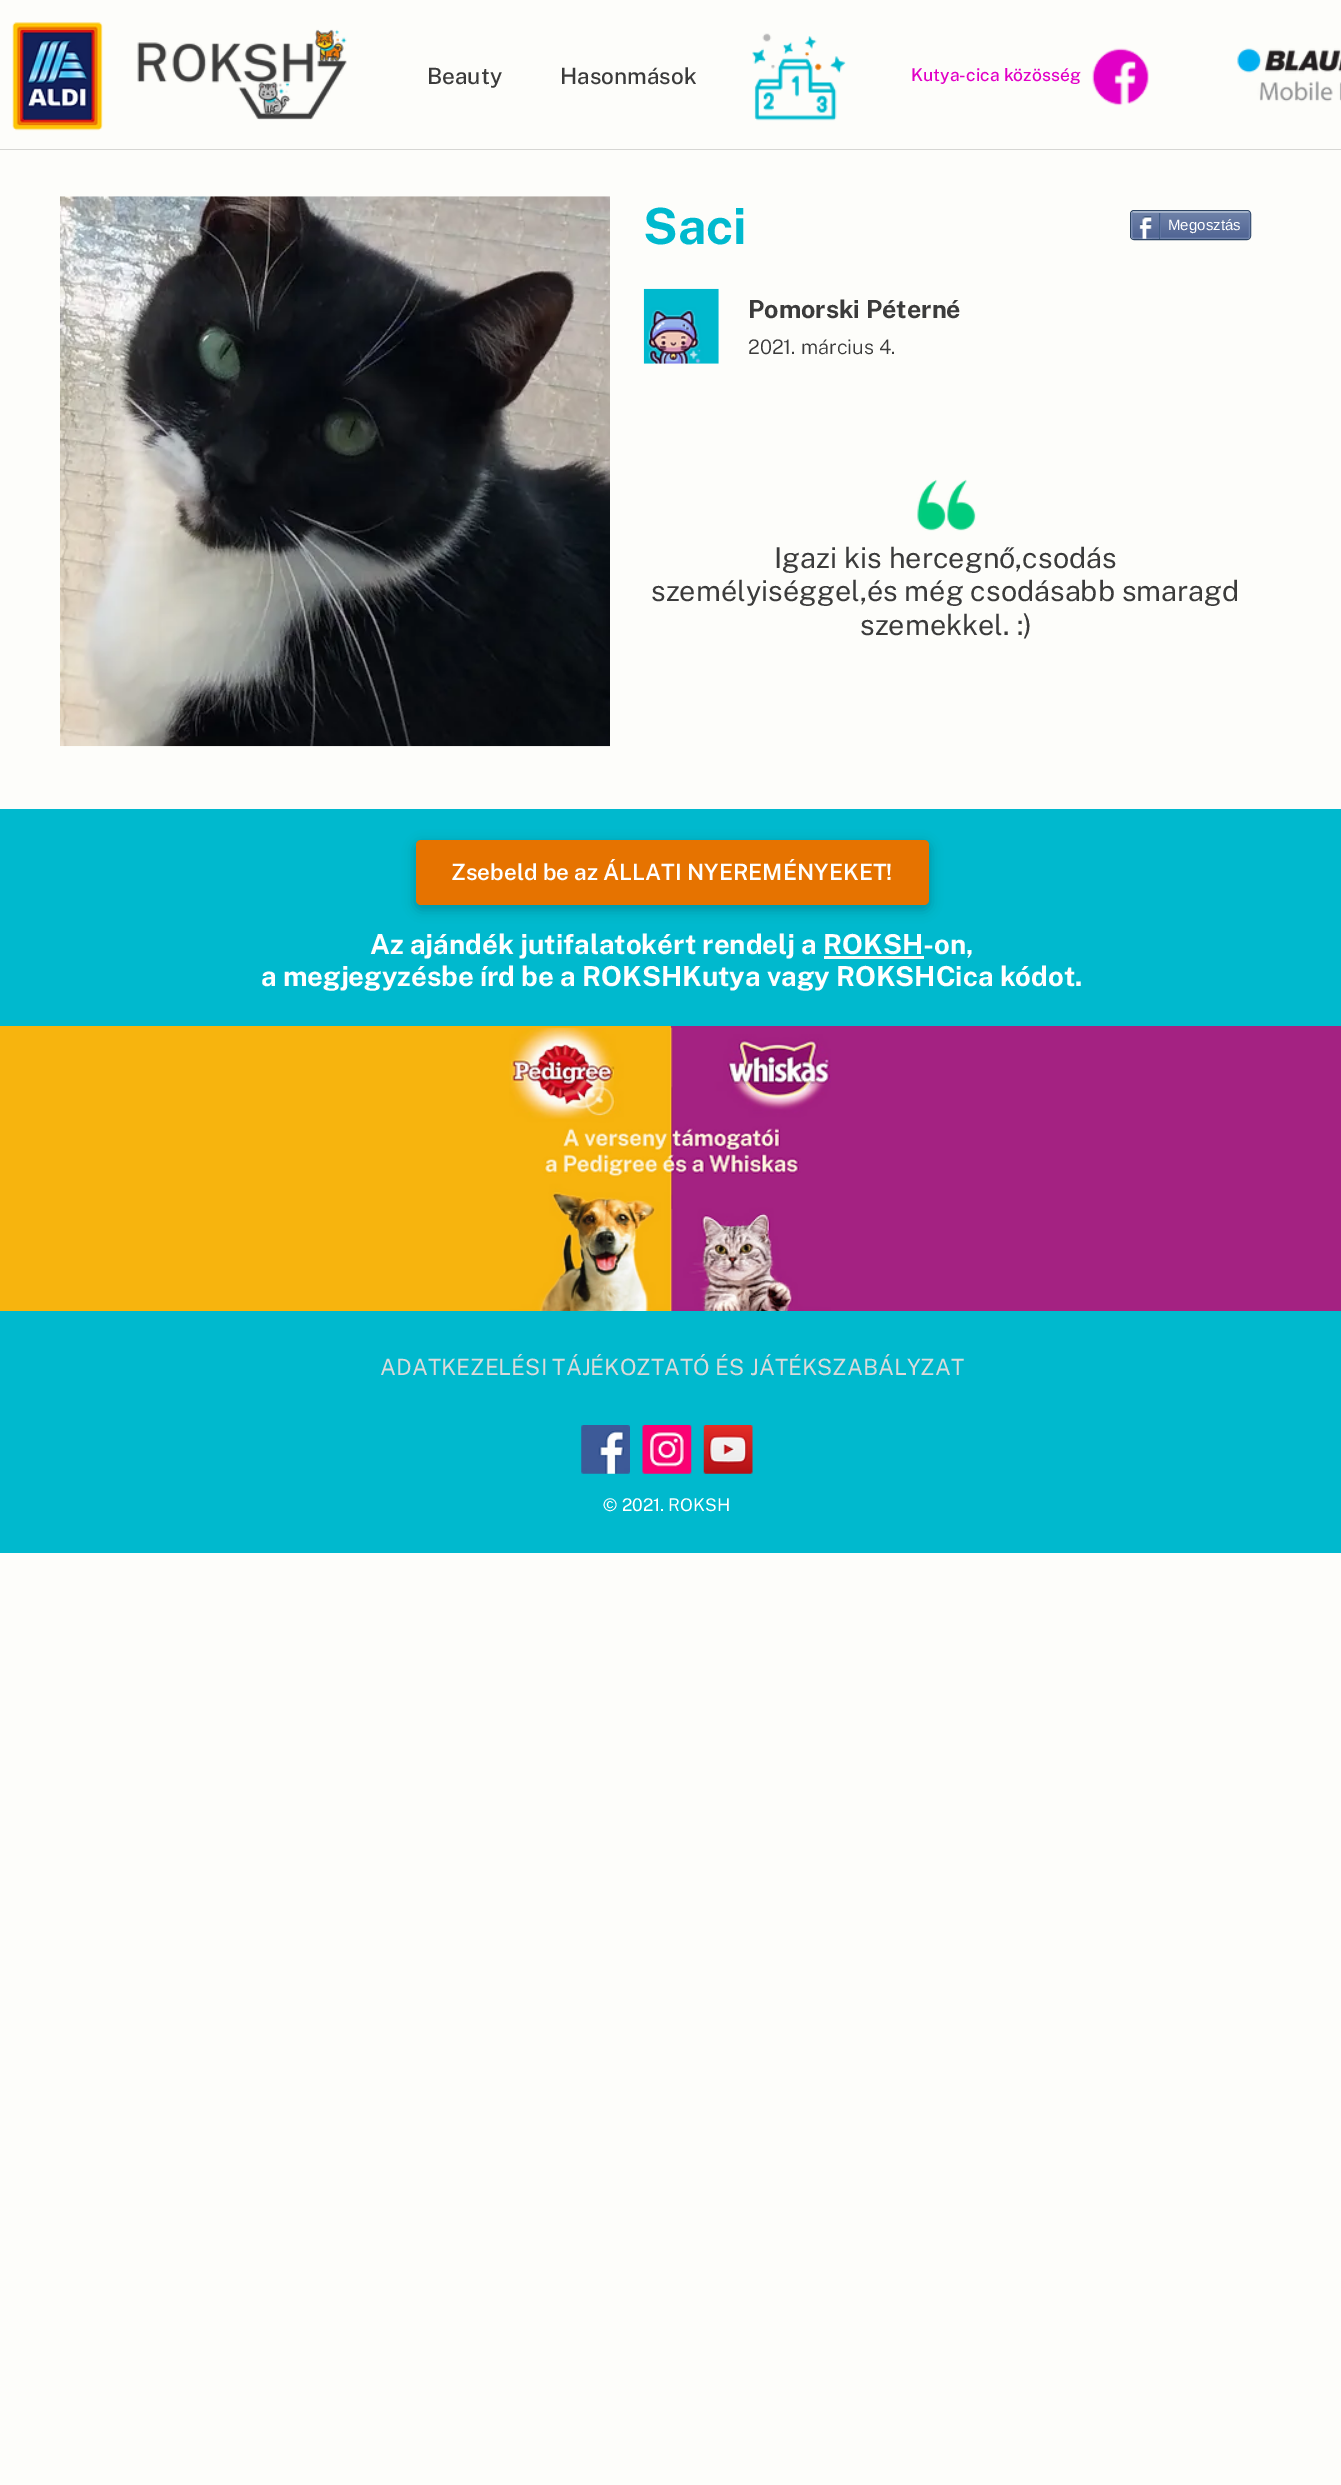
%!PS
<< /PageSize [1341 2485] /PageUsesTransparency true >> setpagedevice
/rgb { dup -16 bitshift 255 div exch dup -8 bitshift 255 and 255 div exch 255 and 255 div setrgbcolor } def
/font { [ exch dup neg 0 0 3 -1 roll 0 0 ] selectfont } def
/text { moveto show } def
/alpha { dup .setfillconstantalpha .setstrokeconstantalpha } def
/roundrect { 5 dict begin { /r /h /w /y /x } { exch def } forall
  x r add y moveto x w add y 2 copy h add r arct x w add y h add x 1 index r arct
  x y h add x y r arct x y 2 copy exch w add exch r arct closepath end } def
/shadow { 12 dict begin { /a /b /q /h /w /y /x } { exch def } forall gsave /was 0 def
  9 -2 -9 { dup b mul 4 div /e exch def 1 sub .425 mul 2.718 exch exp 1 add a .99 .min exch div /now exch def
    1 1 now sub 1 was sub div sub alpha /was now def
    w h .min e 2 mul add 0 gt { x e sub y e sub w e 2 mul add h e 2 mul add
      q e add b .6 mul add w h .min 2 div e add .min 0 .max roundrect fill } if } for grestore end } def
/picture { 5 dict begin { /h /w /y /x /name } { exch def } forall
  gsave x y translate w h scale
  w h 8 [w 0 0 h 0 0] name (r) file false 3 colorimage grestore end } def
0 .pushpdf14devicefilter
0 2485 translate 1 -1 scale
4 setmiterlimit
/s1 { /PublicSans-Medium 22.5 font 16#3B3B3B rgb } def
/s2 { /PublicSans-Medium 17.5 font 16#E100C6 rgb } def
/s3 { /PublicSans-Bold 50 font 16#00B9CE rgb } def
/s4 { /LiberationSans-Regular 15 font 16#FFFFFF rgb } def
/s5 { /PublicSans-Bold 25 font 16#3B3B3B rgb } def
/s6 { /PublicSans-Light 20 font 16#3B3B3B rgb } def
/s7 { /PublicSans-Regular 28.75 font 16#3B3B3B rgb } def
/s8 { /PublicSans-SemiBold 22.5 font 16#FFFFFF rgb } def
/s9 { /PublicSans-Bold 27.5 font 16#FFFFFF rgb } def
/s10 { /PublicSans-Regular 22.5 font 16#DBDBDB rgb } def
/s11 { /PublicSans-Regular 17.5 font 16#FFFFFF rgb } def
16#FDFDFA rgb
0 0 1341 2485 rectfill
(pic1.raw) 12 22 91 109 picture
(pic2.raw) 137 29 210 91 picture
s1
(Beauty) 427 84 text
(Hasonmások) 560 84 text
(pic3.raw) 752 33 94 88 picture
s2
(Kutya-cica közösség) 911 81 text
(pic4.raw) 1092 48 57 58 picture
(pic5.raw) 1237 48 104 54 picture
16#D6D6D3 rgb
0 149 1341 1 rectfill
(pic6.raw) 60 196 550 551 picture
s3
(Saci) 643 244 text
16#2D4565 rgb
1130.5 210.5 120 29 3.5 roundrect stroke
(pic7.raw) 1131 212 119 27 picture
16#9AABC6 rgb
1.2 setlinewidth
1132.5 212.5 moveto 1134 212 lineto 1247.5 212 lineto 1249 212.5 lineto stroke
16#6F83AD rgb
1249 212.5 moveto 1249.5 214 lineto 1249.5 236 lineto 1249 237.5 lineto stroke
16#6176A3 rgb
1249 237.5 moveto 1247.5 238 lineto 1134 238 lineto 1132.5 237.5 lineto stroke
16#6F83AD rgb
1132.5 237.5 moveto 1132 236 lineto 1132 214 lineto 1132.5 212.5 lineto stroke
(pic8.raw) 1139 216 13 23 picture
16#425E85 rgb
1159 213 1 26 rectfill
s4
(Megosztás) 1168 230 text
16#6176A3 rgb
1160 213 1 25 rectfill
(pic9.raw) 643 288 76 76 picture
s5
(Pomorski Péterné) 748 318 text
s6
(2021. március 4.) 748 354 text
(pic10.raw) 917 479 59 52 picture
s7
(Igazi kis hercegnő,csodás) 774 568 text
(személyiséggel,és még csodásabb smaragd) 651 601 text
(szemekkel. :\)) 860 635 text
16#00B9CE rgb
0 809 1341 217 rectfill
16#000000 rgb
415 843 515 67 6 6 0.2 shadow
16#E67300 rgb
416 840 513 65 5 roundrect fill
s8
(Zsebeld be az ÁLLATI NYEREMÉNYEKET!) 451 880 text
s9
(Az ajándék jutifalatokért rendelj a ROKSH-on,) 370 954 text
16#FDFDFA rgb
824 956 100 3 rectfill
s9
(a megjegyzésbe írd be a ROKSHKutya vagy ROKSHCica kódot.) 261 986 text
16#F7B40E rgb
0 1026 671 285 rectfill
16#A42282 rgb
671 1026 670 285 rectfill
(pic11.raw) 509 1027 322 284 picture
16#00B9CE rgb
0 1311 1341 242 rectfill
s10
(ADATKEZELÉSI TÁJÉKOZTATÓ ÉS JÁTÉKSZABÁLYZAT) 380 1375 text
(pic12.raw) 581 1425 49 49 picture
(pic13.raw) 642 1425 50 49 picture
(pic14.raw) 703 1425 50 49 picture
s11
(© 2021. ROKSH) 603 1511 text
.poppdf14devicefilter showpage
